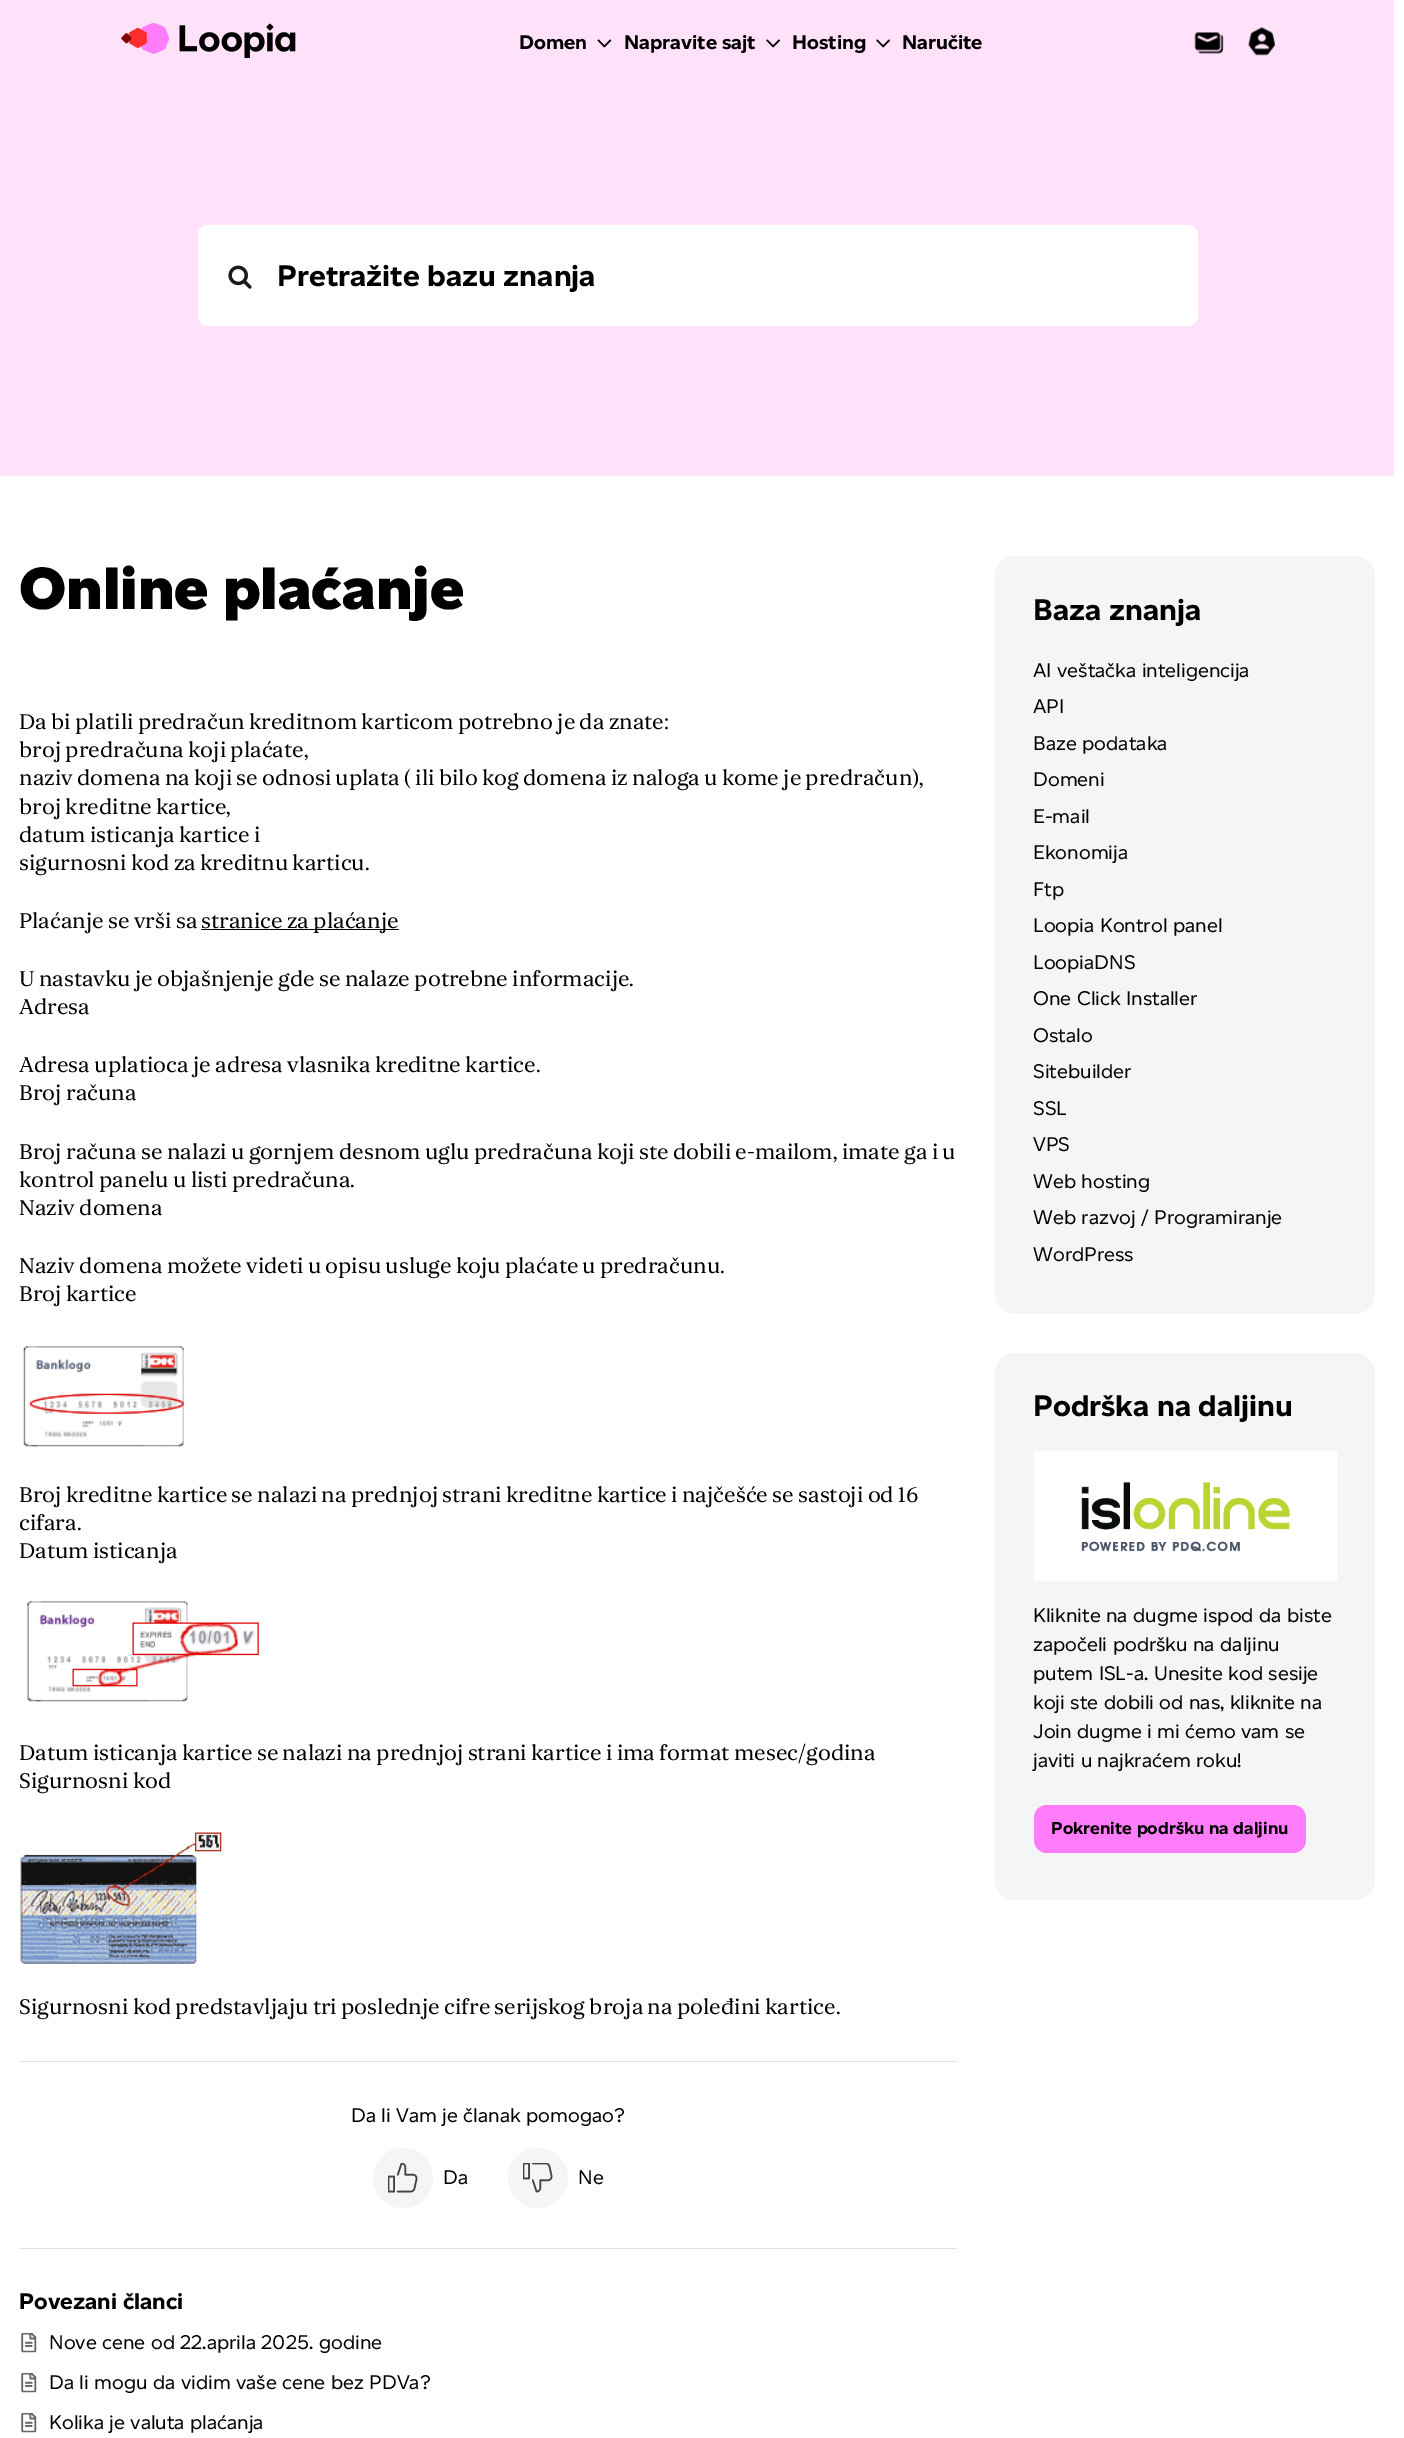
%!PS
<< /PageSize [1404 2438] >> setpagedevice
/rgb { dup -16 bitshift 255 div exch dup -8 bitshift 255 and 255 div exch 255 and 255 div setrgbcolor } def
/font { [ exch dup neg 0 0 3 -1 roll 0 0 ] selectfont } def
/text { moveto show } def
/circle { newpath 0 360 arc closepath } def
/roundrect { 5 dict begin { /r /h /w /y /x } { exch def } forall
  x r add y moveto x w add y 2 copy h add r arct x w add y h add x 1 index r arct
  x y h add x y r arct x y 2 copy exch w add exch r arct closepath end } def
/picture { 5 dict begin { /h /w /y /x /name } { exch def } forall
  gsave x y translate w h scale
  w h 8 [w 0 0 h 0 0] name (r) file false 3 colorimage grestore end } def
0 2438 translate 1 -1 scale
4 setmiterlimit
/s1 { /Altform-Bold 20 font 16#000000 rgb } def
/s2 { /Altform-Bold 30 font 16#000000 rgb } def
/s3 { /Altform-Black 60 font 16#000000 rgb } def
/s4 { /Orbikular-Regular 22.5 font 16#000000 rgb } def
/s5 { /Altform-Regular 20 font 16#000000 rgb } def
/s6 { /Altform-Bold 22.75 font 16#000000 rgb } def
/s7 { /Altform-Bold 17.5 font 16#000000 rgb } def
16#FFFFFF rgb
0 0 1404 2438 rectfill
16#FFE1FA rgb
0 0 1394 476 rectfill
(pic1.raw) 121 23 175 35 picture
s1
(Domen) 519 49 text
(pic2.raw) 597 39 15 9 picture
(Napravite sajt) 624 49 text
(pic3.raw) 766 39 14 9 picture
(Hosting) 792 49 text
(pic3.raw) 876 39 14 9 picture
(Naručite) 902 49 text
(pic4.raw) 1194 32 30 22 picture
(pic5.raw) 1248 27 27 29 picture
16#FFFFFF rgb
198 225 1000 101 10 roundrect fill
(pic6.raw) 228 265 24 24 picture
s2
(Pretražite bazu znanja) 277 286 text
s3
(Online plaćanje) 19 609 text
s4
(Da bi platili predračun kreditnom karticom potrebno je da znate:) 19 729 text
(broj predračuna koji plaćate,) 19 757 text
(naziv domena na koji se odnosi uplata \( ili bilo kog domena iz naloga u kome je predračun\),) 19 785 text
(broj kreditne kartice,) 19 814 text
(datum isticanja kartice i) 19 842 text
(sigurnosni kod za kreditnu karticu.) 19 870 text
(Plaćanje se vrši sa) 19 928 text
201 929 198 1 rectfill
(stranice za plaćanje) 201 928 text
(U nastavku je objašnjenje gde se nalaze potrebne informacije.) 19 986 text
(Adresa) 19 1014 text
(Adresa uplatioca je adresa vlasnika kreditne kartice.) 19 1072 text
(Broj računa) 19 1100 text
(Broj računa se nalazi u gornjem desnom uglu predračuna koji ste dobili e-mailom, imate ga i u) 19 1159 text
(kontrol panelu u listi predračuna.) 19 1187 text
(Naziv domena) 19 1215 text
(Naziv domena možete videti u opisu usluge koju plaćate u predračunu.) 19 1273 text
(Broj kartice) 19 1301 text
(pic7.raw) 23 1346 161 101 picture
(Broj kreditne kartice se nalazi na prednjoj strani kreditne kartice i najčešće se sastoji od 16) 19 1502 text
(cifara.) 19 1530 text
(Datum isticanja) 19 1558 text
(pic8.raw) 27 1601 232 101 picture
(Datum isticanja kartice se nalazi na prednjoj strani kartice i ima format mesec/godina) 19 1760 text
(Sigurnosni kod) 19 1788 text
(pic9.raw) 19 1832 203 132 picture
(Sigurnosni kod predstavljaju tri poslednje cifre serijskog broja na poleđini kartice.) 19 2014 text
16#DFE4E6 rgb
19 2061 939 1 rectfill
19 2248 939 1 rectfill
s5
(Da li Vam je članak pomogao?) 351 2122 text
16#F5F5F5 rgb
403 2178 30 circle fill
(pic10.raw) 388 2163 30 30 picture
s5
(Da) 443 2184 text
16#F5F5F5 rgb
538 2178 30 circle fill
(pic11.raw) 523 2163 30 30 picture
s5
(Ne) 578 2184 text
s6
(Povezani članci) 19 2309 text
(pic12.raw) 21 2333 16 20 picture
s5
(Nove cene od 22.aprila 2025. godine) 49 2349 text
(pic12.raw) 21 2373 16 20 picture
(Da li mogu da vidim vaše cene bez PDVa?) 49 2389 text
(pic12.raw) 21 2413 16 20 picture
(Kolika je valuta plaćanja) 49 2429 text
16#F4F5F5 rgb
995 556 380 758 20 roundrect fill
s2
(Baza znanja) 1033 620 text
s5
(AI veštačka inteligencija) 1033 677 text
(API) 1033 713 text
(Baze podataka) 1033 750 text
(Domeni) 1033 786 text
(E-mail) 1033 823 text
(Ekonomija) 1033 859 text
(Ftp) 1033 896 text
(Loopia Kontrol panel) 1033 932 text
(LoopiaDNS) 1033 969 text
(One Click Installer) 1033 1005 text
(Ostalo) 1033 1042 text
(Sitebuilder) 1033 1078 text
(SSL) 1033 1115 text
(VPS) 1033 1151 text
(Web hosting) 1033 1188 text
(Web razvoj / Programiranje) 1033 1224 text
(WordPress) 1033 1261 text
16#F4F5F5 rgb
995 1353 380 547 20 roundrect fill
s2
(Podrška na daljinu) 1033 1416 text
(pic13.raw) 1034 1451 304 130 picture
s5
(Kliknite na dugme ispod da biste) 1033 1622 text
(započeli podršku na daljinu) 1033 1651 text
(putem ISL-a. Unesite kod sesije) 1033 1680 text
(koji ste dobili od nas, kliknite na) 1033 1709 text
(Join dugme i mi ćemo vam se) 1033 1738 text
(javiti u najkraćem roku!) 1033 1767 text
16#FF7DFA rgb
1034 1805 272 48 13 roundrect fill
s7
(Pokrenite podršku na daljinu) 1051 1834 text
showpage
